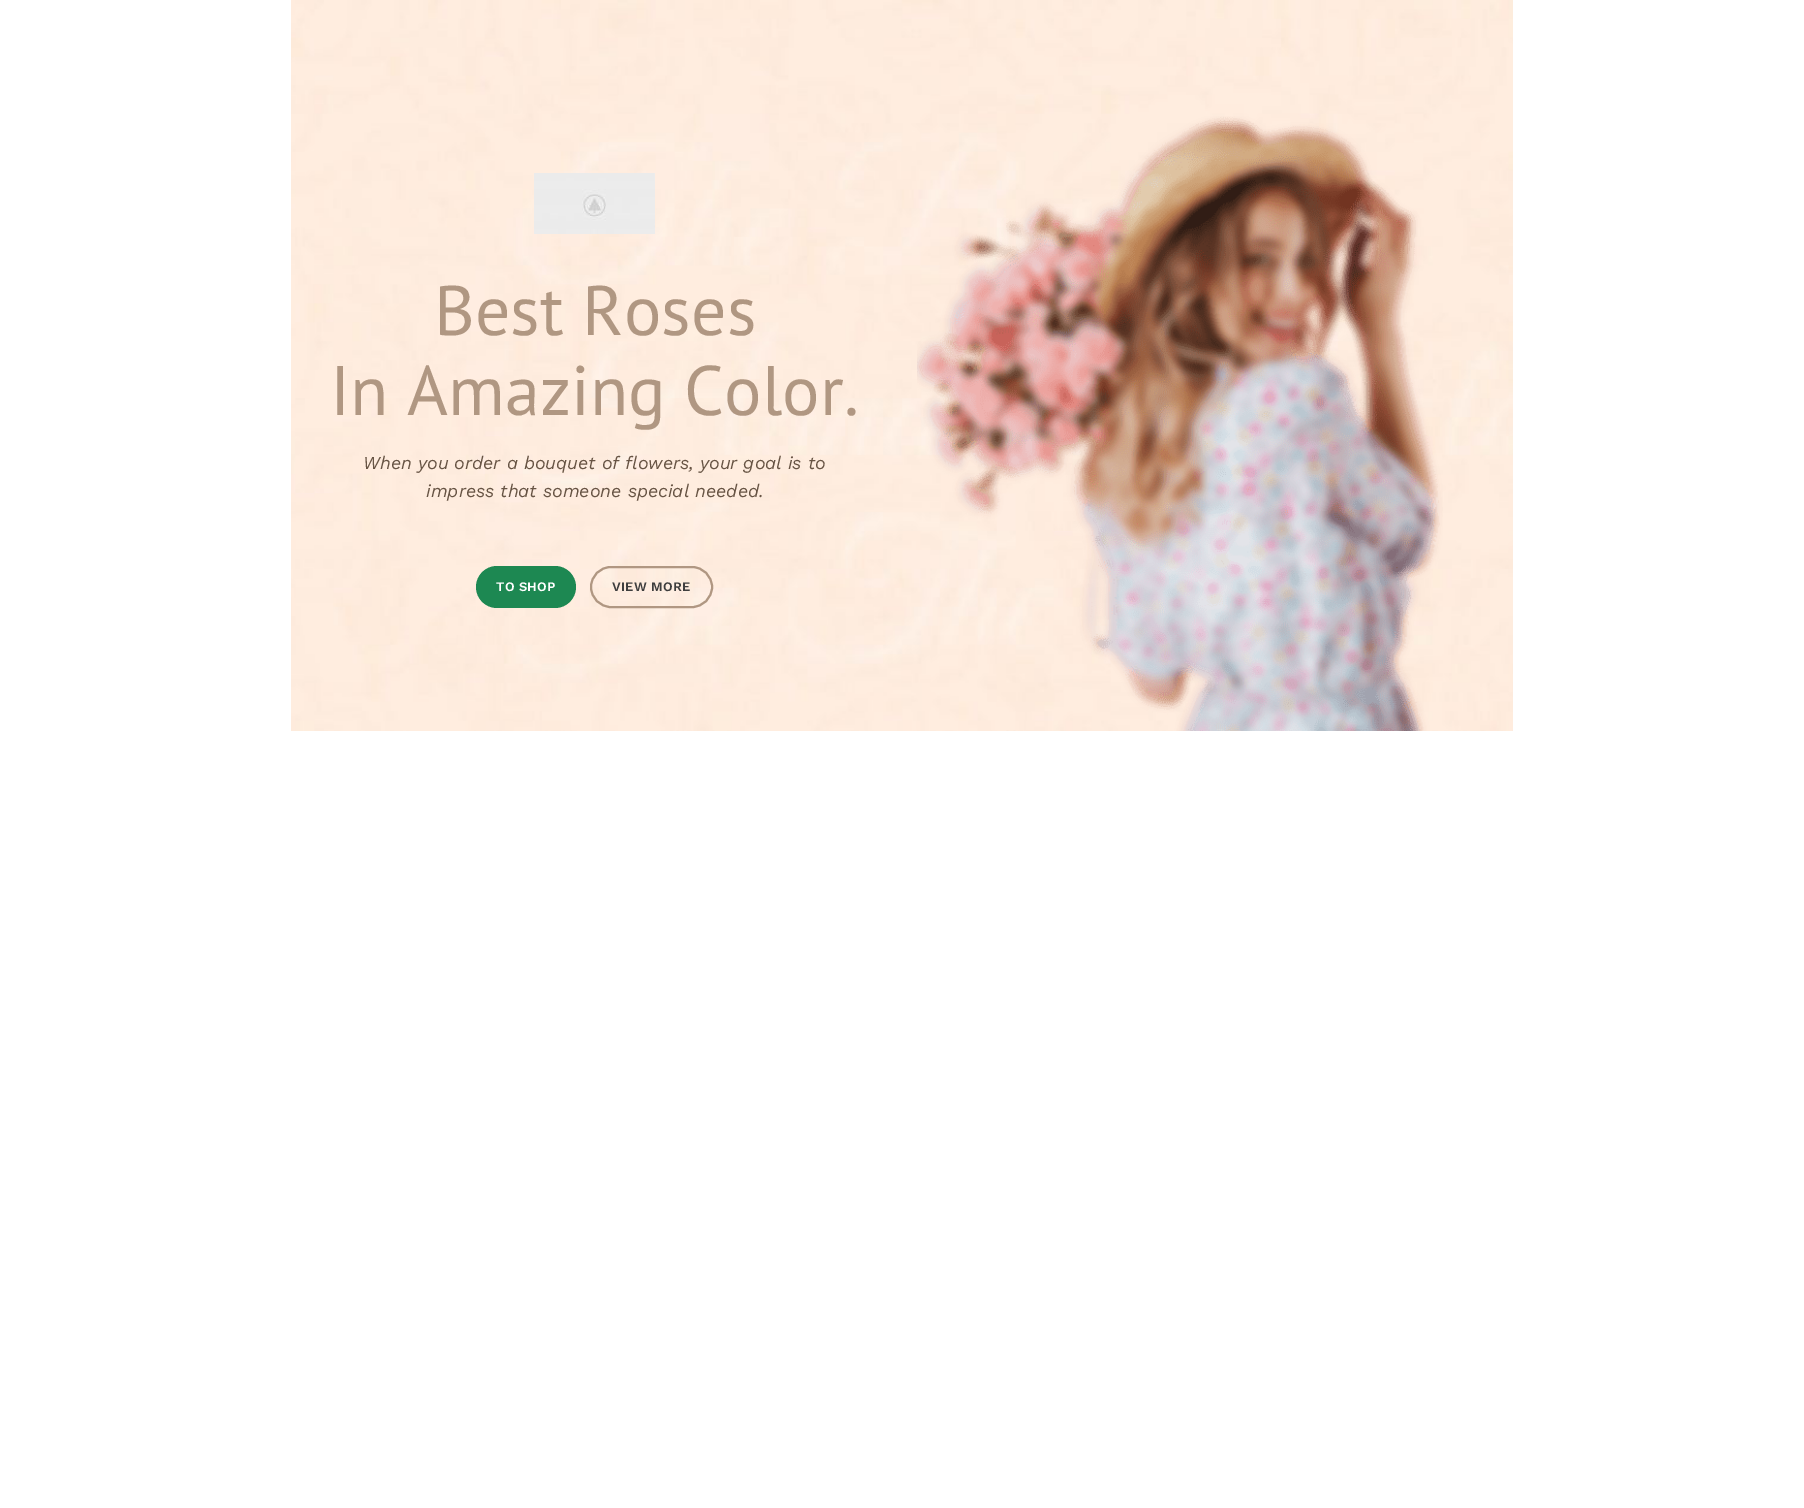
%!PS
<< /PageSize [1804 1508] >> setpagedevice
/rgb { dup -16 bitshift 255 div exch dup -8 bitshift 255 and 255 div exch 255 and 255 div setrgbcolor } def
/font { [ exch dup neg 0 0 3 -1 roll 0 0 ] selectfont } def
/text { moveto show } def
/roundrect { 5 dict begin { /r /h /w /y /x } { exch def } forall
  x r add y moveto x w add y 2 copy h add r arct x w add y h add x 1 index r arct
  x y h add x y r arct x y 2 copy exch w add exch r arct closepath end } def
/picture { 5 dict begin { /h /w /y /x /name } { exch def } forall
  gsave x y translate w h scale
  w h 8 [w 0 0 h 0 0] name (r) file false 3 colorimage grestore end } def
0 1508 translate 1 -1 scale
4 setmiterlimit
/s1 { /PTSans-Regular 70 font 16#B09782 rgb } def
/s2 { /WorkSans-Italic 18 font 16#675444 rgb } def
16#FFFFFF rgb
0 0 1804 1508 rectfill
(pic1.raw) 291 0 1222 731 picture
(pic2.raw) 534 173 121 61 picture
s1
(Best Roses) 434 335 text
(In Amazing Color.) 330 415 text
s2
(When you order a bouquet of flowers, your goal is to) 363 469 text
(impress that someone special needed.) 426 497 text
16#1D8852 rgb
476 566 100 42 21 roundrect fill
/WorkSans-SemiBold 13 font
16#FFFFFF rgb
496 591 moveto 0.25 0 (TO SHOP) ashow
16#B09782 rgb
2 setlinewidth
591 567 121 40 20 roundrect stroke
16#3E3E3E rgb
612 591 moveto 0.25 0 (VIEW MORE) ashow
(pic3.raw) 917 116 526 615 picture
showpage
